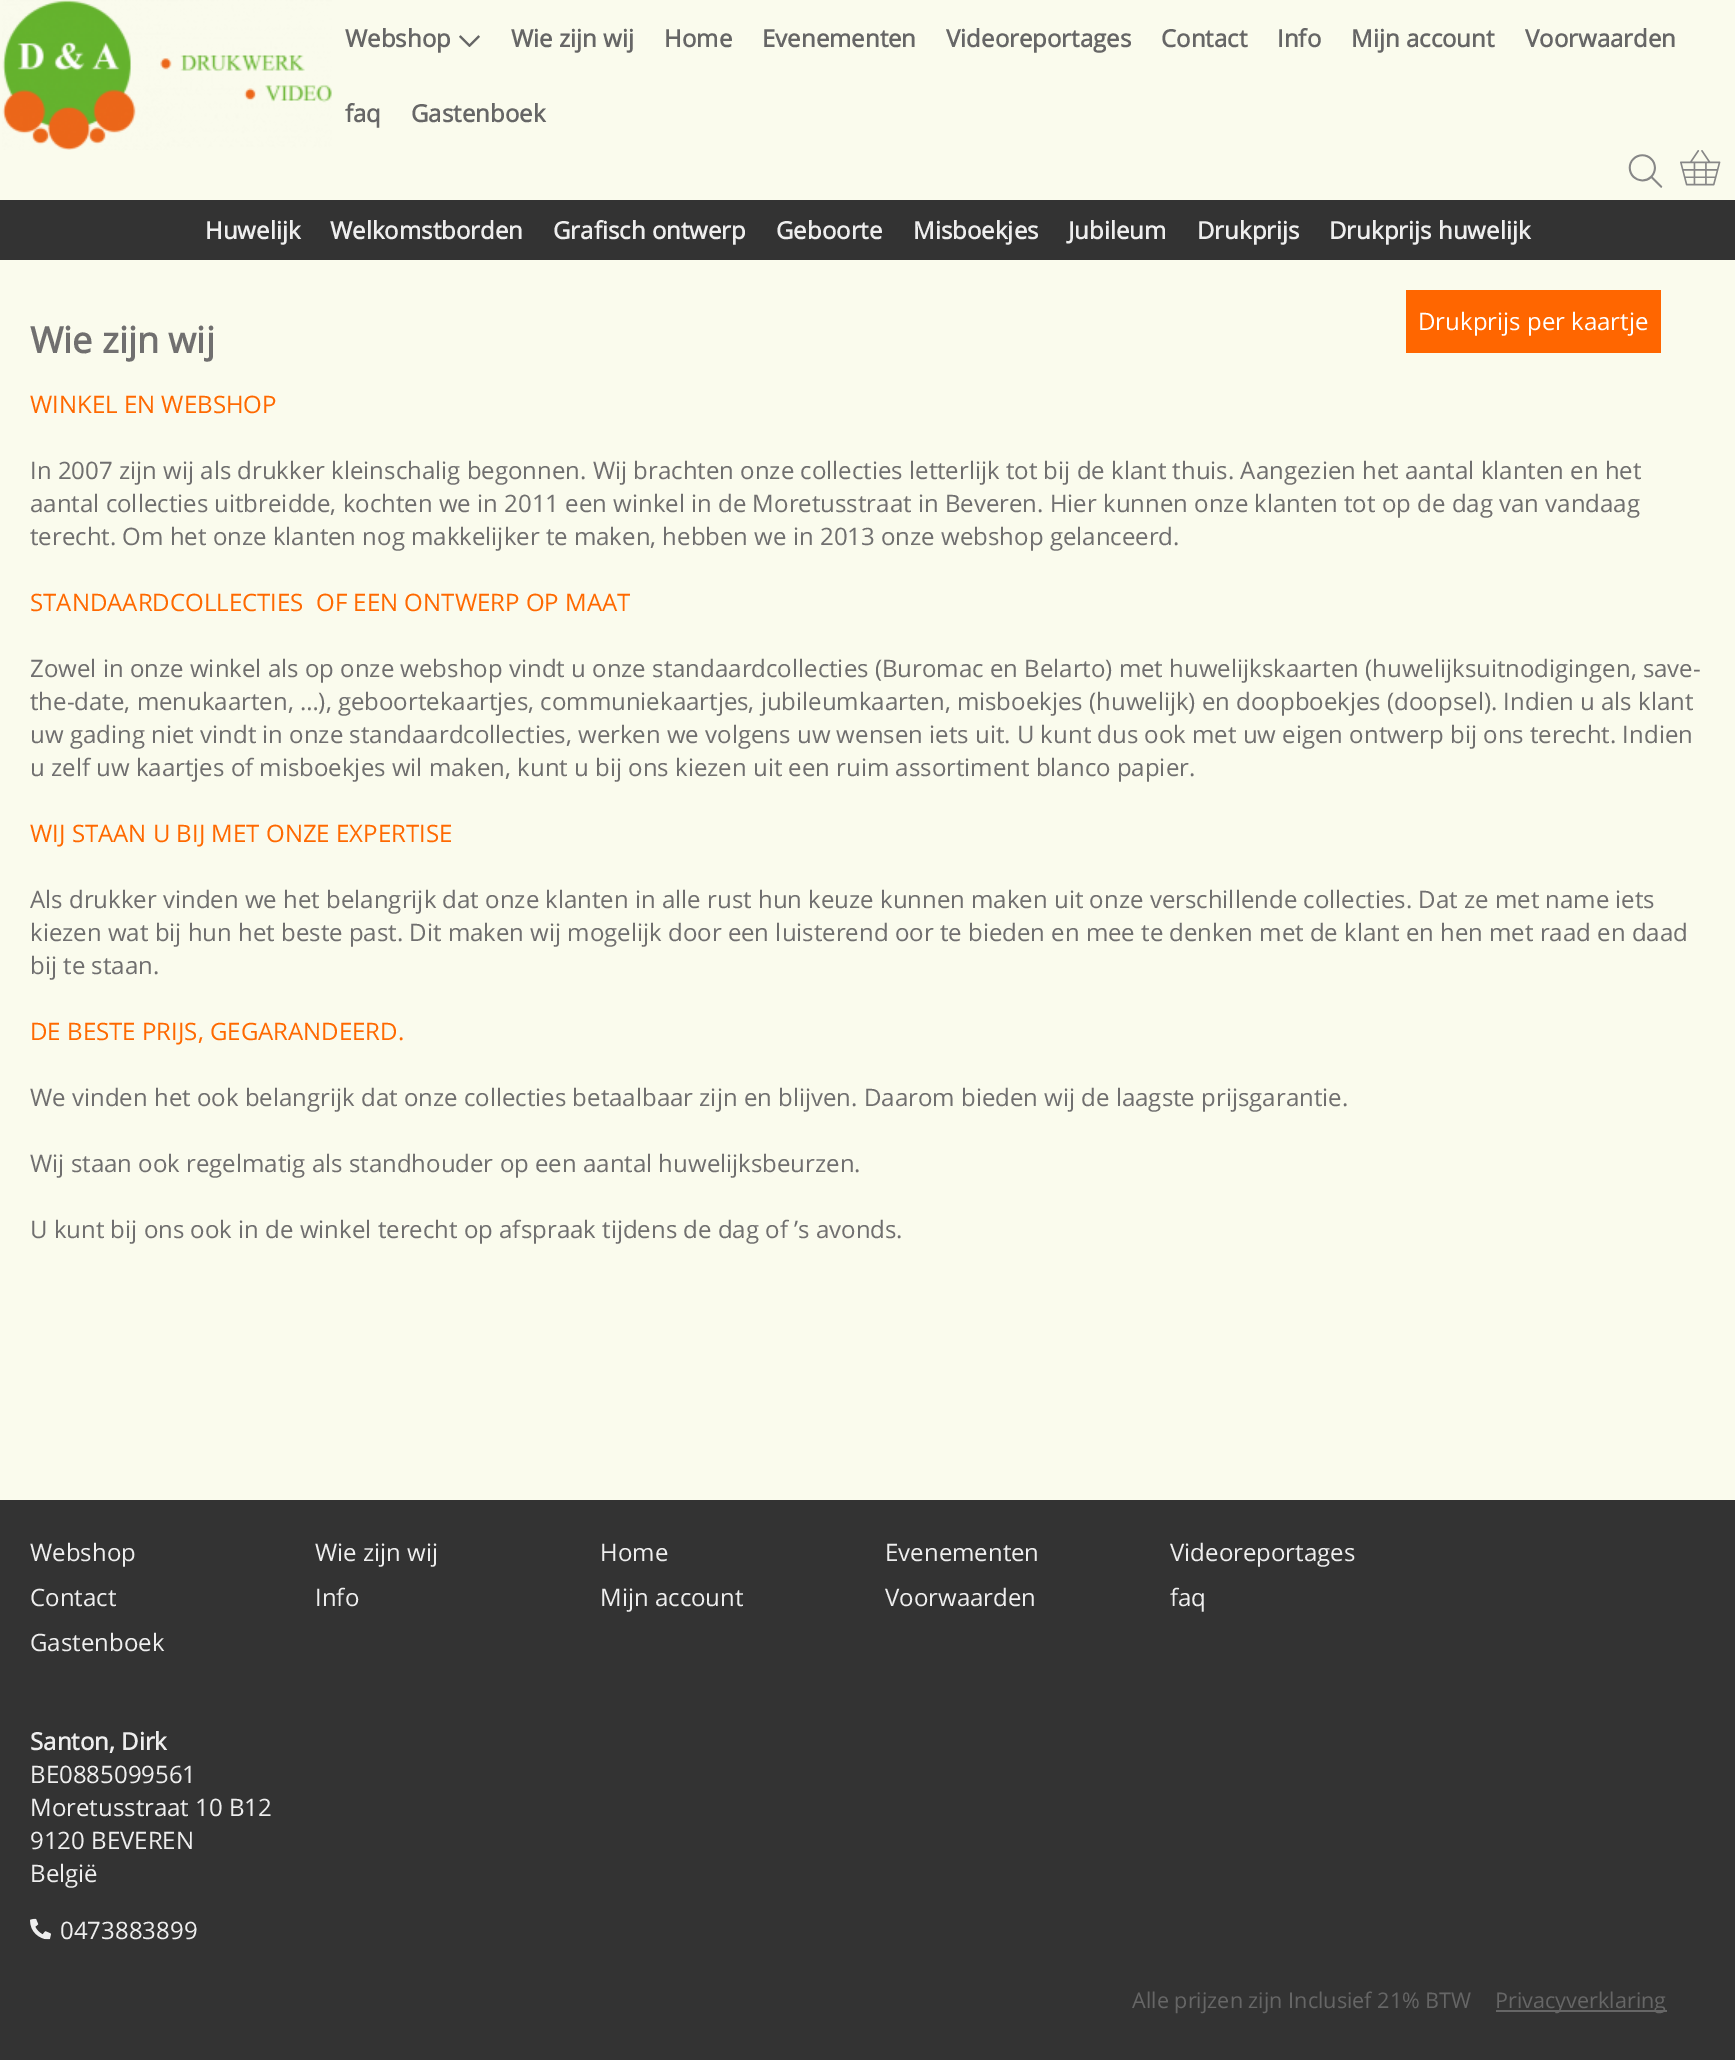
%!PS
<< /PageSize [1735 2066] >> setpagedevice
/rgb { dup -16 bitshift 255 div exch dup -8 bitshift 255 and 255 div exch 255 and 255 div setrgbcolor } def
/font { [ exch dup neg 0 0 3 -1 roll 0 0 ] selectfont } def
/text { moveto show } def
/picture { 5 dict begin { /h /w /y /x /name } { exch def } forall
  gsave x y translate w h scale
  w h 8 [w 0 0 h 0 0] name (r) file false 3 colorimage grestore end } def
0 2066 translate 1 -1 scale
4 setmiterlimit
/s1 { /OpenSans-Bold 24 font 16#666666 rgb } def
/s2 { /OpenSans-Bold 24 font 16#EEEEEE rgb } def
/s3 { /OpenSans-Regular 24 font 16#FFFFFF rgb } def
/s4 { /OpenSans-Bold 36 font 16#706F6F rgb } def
/s5 { /OpenSans-Regular 24 font 16#FF6900 rgb } def
/s6 { /OpenSans-Regular 24 font 16#706F6F rgb } def
/s7 { /OpenSans-Regular 24 font 16#EEEEEE rgb } def
/s8 { /OpenSans-Regular 21.6 font 16#666666 rgb } def
16#FAFBED rgb
0 0 1735 2066 rectfill
(pic1.raw) 2 0 330 150 picture
s1
(Webshop) 345 47 text
(pic2.raw) 459 35 21 12 picture
(Wie zijn wij) 511 47 text
(Home) 664 47 text
(Evenementen) 762 47 text
(Videoreportages) 946 47 text
(Contact) 1161 47 text
(Info) 1277 47 text
(Mijn account) 1351 47 text
(Voorwaarden) 1525 47 text
(faq) 345 122 text
(Gastenboek) 411 122 text
(pic3.raw) 1628 154 35 34 picture
(pic4.raw) 1680 150 41 36 picture
16#333333 rgb
0 200 1735 60 rectfill
s2
(Huwelijk) 205 239 text
(Welkomstborden) 330 239 text
(Grafisch ontwerp) 553 239 text
(Geboorte) 776 239 text
(Misboekjes) 913 239 text
(Jubileum) 1068 239 text
(Drukprijs) 1197 239 text
(Drukprijs huwelijk) 1329 239 text
16#FF6600 rgb
1406 290 255 63 rectfill
s3
(Drukprijs per kaartje) 1418 330 text
s4
(Wie zijn wij) 30 353 text
s5
(WINKEL EN WEBSHOP) 30 413 text
s6
(In 2007 zijn wij als drukker kleinschalig begonnen. Wij brachten onze collecties letterlijk tot bij de klant thuis. Aangezien het aantal klanten en het) 30 479 text
(aantal collecties uitbreidde, kochten we in 2011 een winkel in de Moretusstraat in Beveren. Hier kunnen onze klanten tot op de dag van vandaag) 30 512 text
(terecht. Om het onze klanten nog makkelijker te maken, hebben we in 2013 onze webshop gelanceerd.) 30 545 text
s5
(STANDAARDCOLLECTIES  OF EEN ONTWERP OP MAAT) 30 611 text
s6
(Zowel in onze winkel als op onze webshop vindt u onze standaardcollecties \(Buromac en Belarto\) met huwelijkskaarten \(huwelijksuitnodigingen, save-) 30 677 text
(the-date, menukaarten, …\), geboortekaartjes, communiekaartjes, jubileumkaarten, misboekjes \(huwelijk\) en doopboekjes \(doopsel\). Indien u als klant) 30 710 text
(uw gading niet vindt in onze standaardcollecties, werken we volgens uw wensen iets uit. U kunt dus ook met uw eigen ontwerp bij ons terecht. Indien) 30 743 text
(u zelf uw kaartjes of misboekjes wil maken, kunt u bij ons kiezen uit een ruim assortiment blanco papier.) 30 776 text
s5
(WIJ STAAN U BIJ MET ONZE EXPERTISE) 30 842 text
s6
(Als drukker vinden we het belangrijk dat onze klanten in alle rust hun keuze kunnen maken uit onze verschillende collecties. Dat ze met name iets) 30 908 text
(kiezen wat bij hun het beste past. Dit maken wij mogelijk door een luisterend oor te bieden en mee te denken met de klant en hen met raad en daad) 30 941 text
(bij te staan.) 30 974 text
s5
(DE BESTE PRIJS, GEGARANDEERD.) 30 1040 text
s6
(We vinden het ook belangrijk dat onze collecties betaalbaar zijn en blijven. Daarom bieden wij de laagste prijsgarantie.) 30 1106 text
(Wij staan ook regelmatig als standhouder op een aantal huwelijksbeurzen.) 30 1172 text
(U kunt bij ons ook in de winkel terecht op afspraak tijdens de dag of ’s avonds.) 30 1238 text
16#333333 rgb
0 1500 1735 560 rectfill
s7
(Webshop) 30 1561 text
(Wie zijn wij) 315 1561 text
(Home) 600 1561 text
(Evenementen) 885 1561 text
(Videoreportages) 1170 1561 text
(Contact) 30 1606 text
(Info) 315 1606 text
(Mijn account) 600 1606 text
(Voorwaarden) 885 1606 text
(faq) 1170 1606 text
(Gastenboek) 30 1651 text
s2
(Santon, Dirk) 30 1750 text
s7
(BE0885099561) 30 1783 text
(Moretusstraat 10 B12) 30 1816 text
(9120 BEVEREN) 30 1849 text
(België) 30 1882 text
(pic5.raw) 30 1918 21 22 picture
(0473883899) 60 1939 text
s8
(Alle prijzen zijn Inclusief 21% BTW) 1132 2008 text
1496 2010 171 2 rectfill
(Privacyverklaring) 1495 2008 text
16#FFFFFF rgb
0 2060 1735 6 rectfill
showpage
